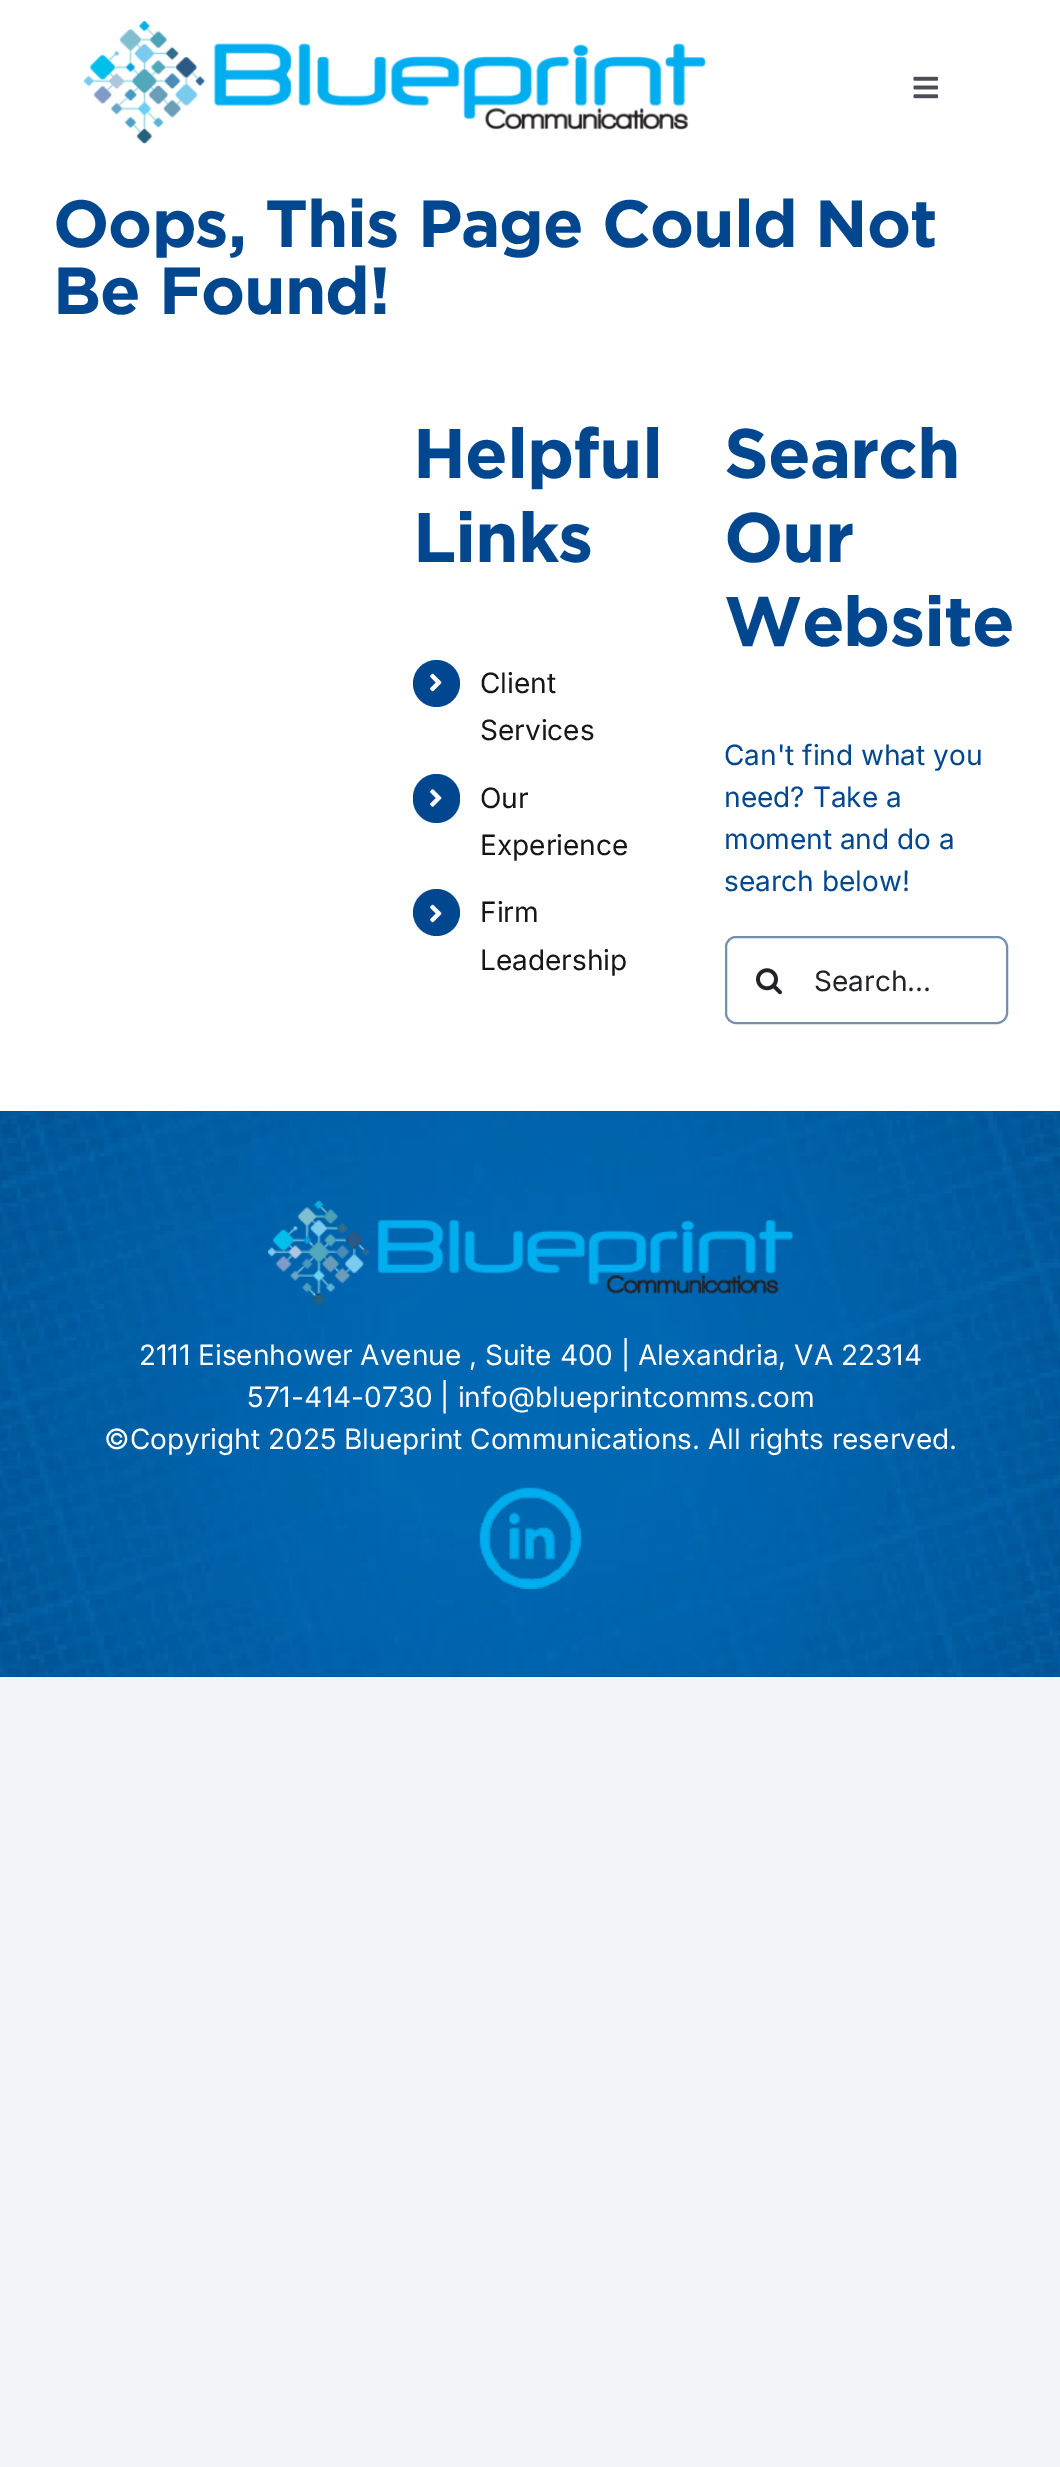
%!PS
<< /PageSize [1060 2467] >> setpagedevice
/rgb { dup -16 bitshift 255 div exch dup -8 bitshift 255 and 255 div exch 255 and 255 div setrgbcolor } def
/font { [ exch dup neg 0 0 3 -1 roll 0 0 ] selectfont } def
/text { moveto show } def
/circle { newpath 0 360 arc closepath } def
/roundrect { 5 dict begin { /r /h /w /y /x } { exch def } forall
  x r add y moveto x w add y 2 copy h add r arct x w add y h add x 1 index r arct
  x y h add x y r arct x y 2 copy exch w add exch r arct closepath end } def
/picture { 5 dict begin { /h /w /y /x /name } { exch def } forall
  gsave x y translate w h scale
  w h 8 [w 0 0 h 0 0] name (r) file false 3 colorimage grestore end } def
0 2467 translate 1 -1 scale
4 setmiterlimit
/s1 { /Inter-Regular 28 font 16#141617 rgb } def
/s2 { /Inter-Regular 28 font 16#004790 rgb } def
/s3 { /Inter-Regular 28 font 16#212326 rgb } def
/s4 { /Inter-Regular 28 font 16#FFFFFF rgb } def
16#F1F5F9 rgb
0 0 1060 2467 rectfill
16#FFFFFF rgb
0 0 1060 1111 rectfill
(pic1.raw) 84 21 622 123 picture
(pic2.raw) 913 76 25 23 picture
/Gotham-Bold 66.5 font
16#004790 rgb
53 247 moveto -1 0 (Oops, This Page Could Not) ashow
53 314 moveto -1 0 (Be Found!) ashow
/Gotham-Bold 70 font
413 478 moveto -1 0 (Helpful) ashow
413 562 moveto -1 0 (Links) ashow
436.5 683.5 23.5 circle fill
(pic3.raw) 430 673 12 19 picture
s1
(Client) 480 693 text
(Services) 480 740 text
16#004790 rgb
413 774 47 49 23.5 roundrect fill
(pic4.raw) 430 789 12 18 picture
s1
(Our) 480 808 text
(Experience) 480 855 text
16#004790 rgb
436.5 912.5 23.5 circle fill
(pic3.raw) 430 904 12 19 picture
s1
(Firm) 480 922 text
(Leadership) 480 970 text
/Gotham-Bold 70 font
16#004790 rgb
724 478 moveto -1 0 (Search) ashow
724 562 moveto -1 0 (Our) ashow
724 646 moveto -1 0 (Website) ashow
s2
(Can't find what you) 724 765 text
(need? Take a) 724 807 text
(moment and do a) 724 849 text
(search below!) 724 891 text
16#7290AE rgb
2 setlinewidth
726 937 281 86 10 roundrect stroke
(pic5.raw) 756 968 26 27 picture
s3
(Search...) 814 991 text
16#004790 rgb
0 1111 1060 566 rectfill
(pic6.raw) 0 1111 1060 566 picture
(pic7.raw) 267 1200 526 106 picture
s4
(2111 Eisenhower Avenue , Suite 400 | Alexandria, VA 22314) 139 1365 text
(571-414-0730 | info@blueprintcomms.com) 247 1407 text
(©Copyright 2025 Blueprint Communications. All rights reserved.) 104 1449 text
(pic8.raw) 479 1487 102 102 picture
showpage
